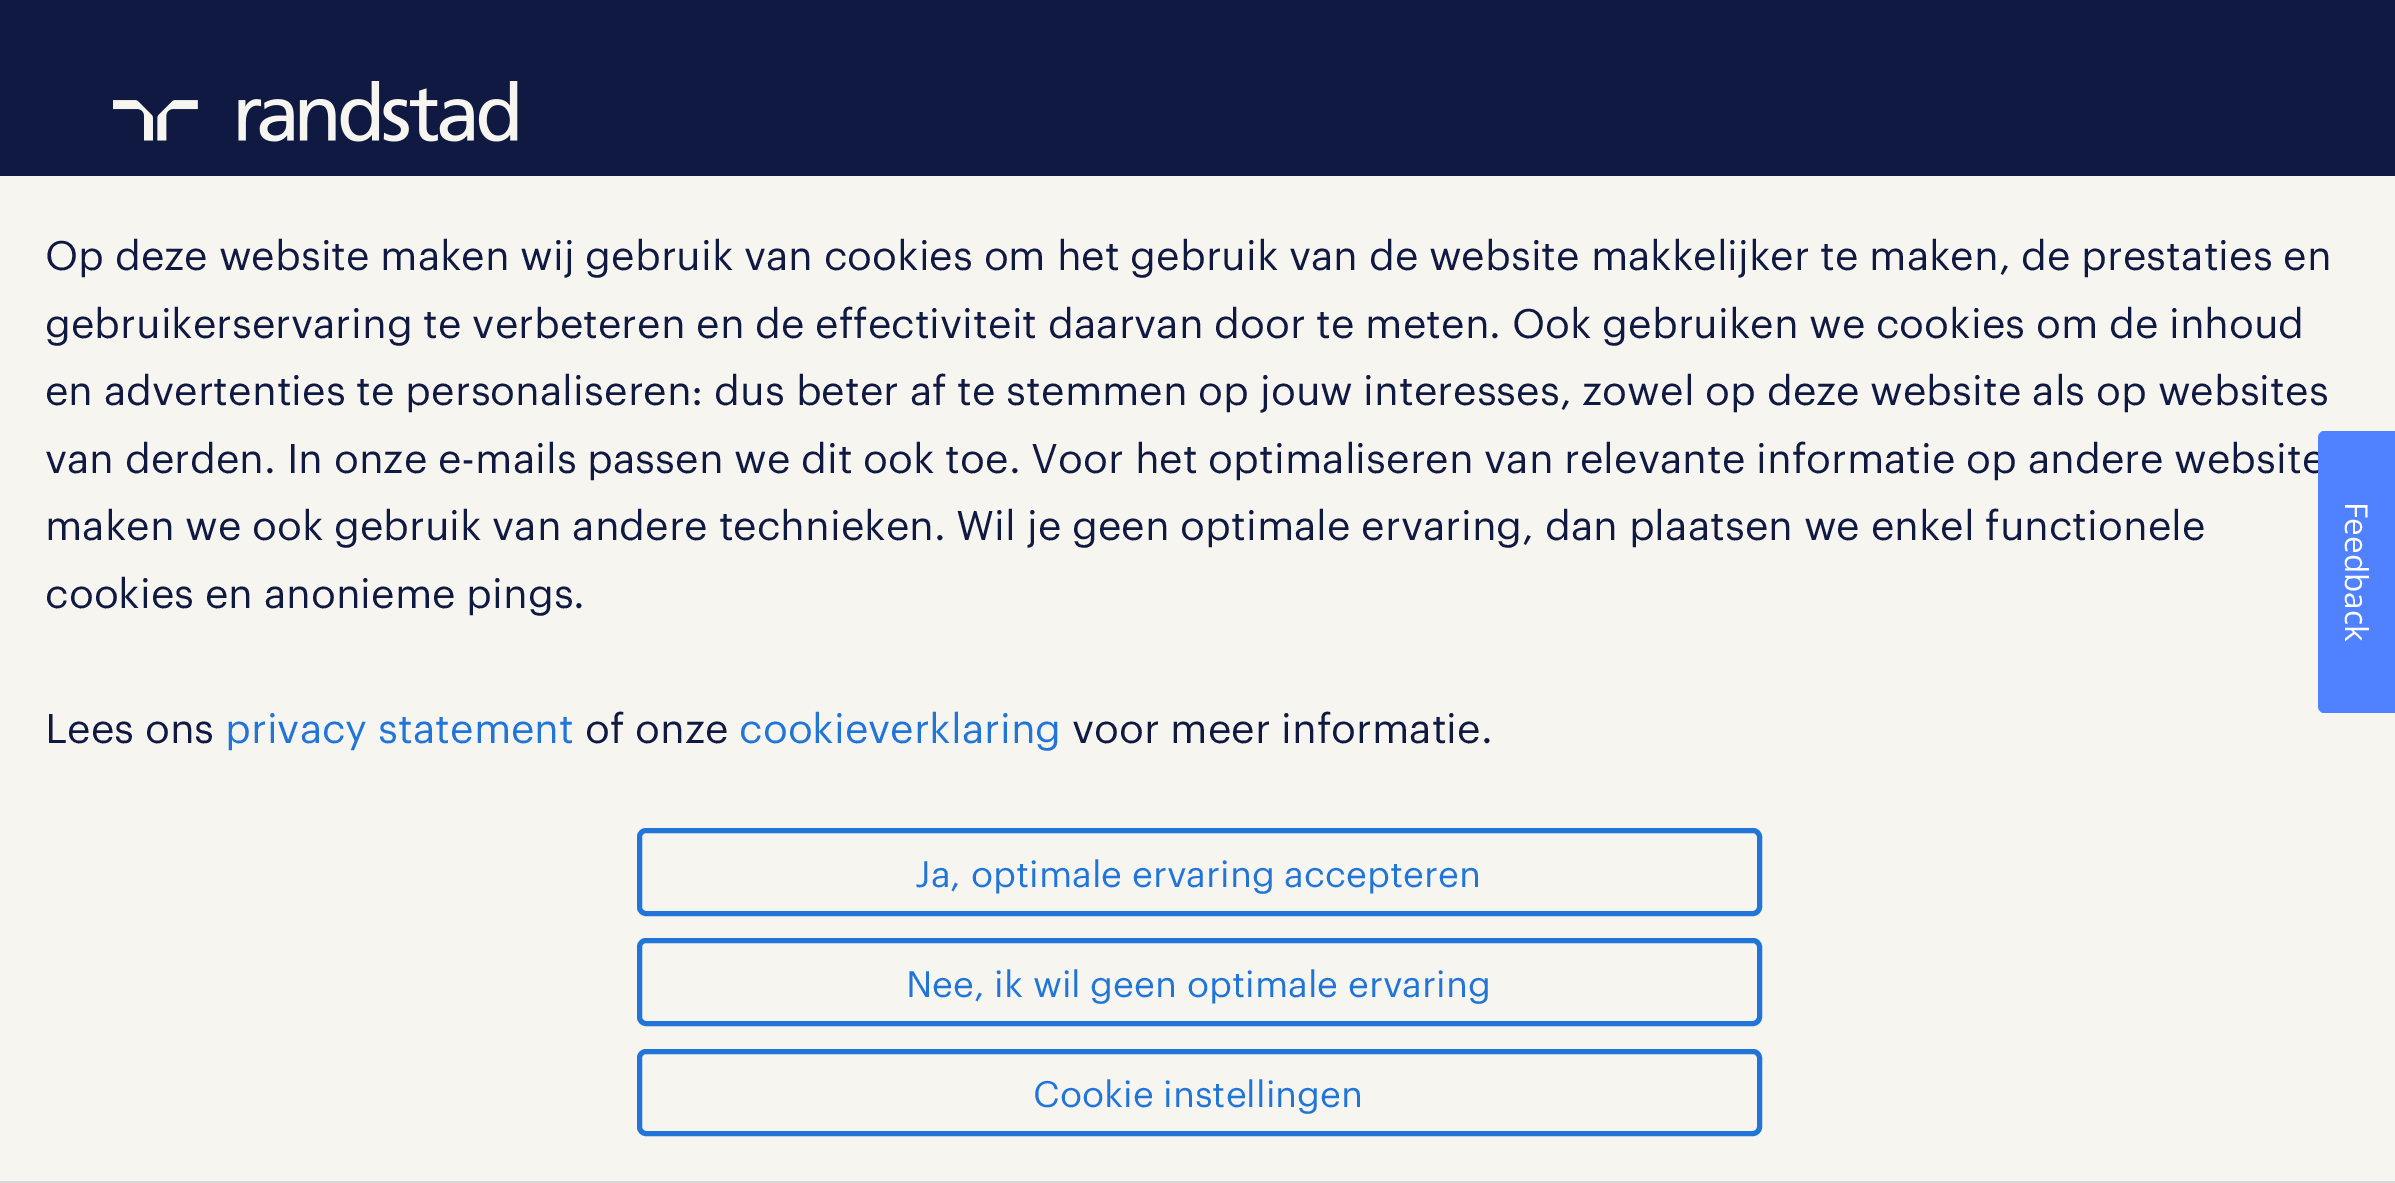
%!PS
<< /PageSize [2395 1183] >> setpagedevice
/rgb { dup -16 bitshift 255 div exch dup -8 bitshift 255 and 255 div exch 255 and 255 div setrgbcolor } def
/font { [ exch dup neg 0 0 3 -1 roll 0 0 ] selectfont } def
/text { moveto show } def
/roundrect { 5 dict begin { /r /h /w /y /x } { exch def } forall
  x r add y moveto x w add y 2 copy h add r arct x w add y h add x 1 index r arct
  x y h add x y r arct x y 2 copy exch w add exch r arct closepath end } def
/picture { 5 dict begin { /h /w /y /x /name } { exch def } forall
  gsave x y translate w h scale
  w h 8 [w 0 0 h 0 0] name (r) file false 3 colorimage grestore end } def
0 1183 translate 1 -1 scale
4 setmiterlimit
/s1 { /Graphik-Regular 40.5 font 16#0F1941 rgb } def
/s2 { /Graphik-Regular 40.5 font 16#2175D9 rgb } def
/s3 { /Graphik-Regular 36 font 16#2175D9 rgb } def
16#0F1941 rgb
0 0 2395 1183 rectfill
(pic1.raw) 113 81 405 61 picture
16#F7F5F0 rgb
0 176 2395 1005 rectfill
16#D7D7D7 rgb
0 1181 2395 2 rectfill
s1
(Op deze website maken wij gebruik van cookies om het gebruik van de website makkelijker te maken, de prestaties en) 45 270 text
(gebruikerservaring te verbeteren en de effectiviteit daarvan door te meten. Ook gebruiken we cookies om de inhoud) 45 338 text
(en advertenties te personaliseren: dus beter af te stemmen op jouw interesses, zowel op deze website als op websites) 45 405 text
(van derden. In onze e-mails passen we dit ook toe. Voor het optimaliseren van relevante informatie op andere website) 45 473 text
(maken we ook gebruik van andere technieken. Wil je geen optimale ervaring, dan plaatsen we enkel functionele) 45 540 text
(cookies en anonieme pings.) 45 608 text
(Lees ons) 45 743 text
s2
(privacy statement) 225 743 text
s1
(of onze) 585 743 text
s2
(cookieverklaring) 739 743 text
s1
(voor meer informatie.) 1072 743 text
16#2175D9 rgb
5 setlinewidth
639.5 830.5 1120 83 6.5 roundrect stroke
s3
(Ja, optimale ervaring accepteren) 915 887 text
639.5 940.5 1120 83 6.5 roundrect stroke
(Nee, ik wil geen optimale ervaring) 906 997 text
639.5 1051.5 1120 82 6.5 roundrect stroke
(Cookie instellingen) 1033 1107 text
16#5081FF rgb
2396 431 moveto 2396 713 lineto 2324 713 lineto 2321 713 2318 710 2318 706 curveto 2318 438 lineto 2318 434 2321 431 2324 431 curveto closepath fill
/OpenSans-Regular 31.5 font
16#FFFFFF rgb
gsave 2345 502 translate 90 rotate 0 0 moveto (Feedback) show grestore
showpage
